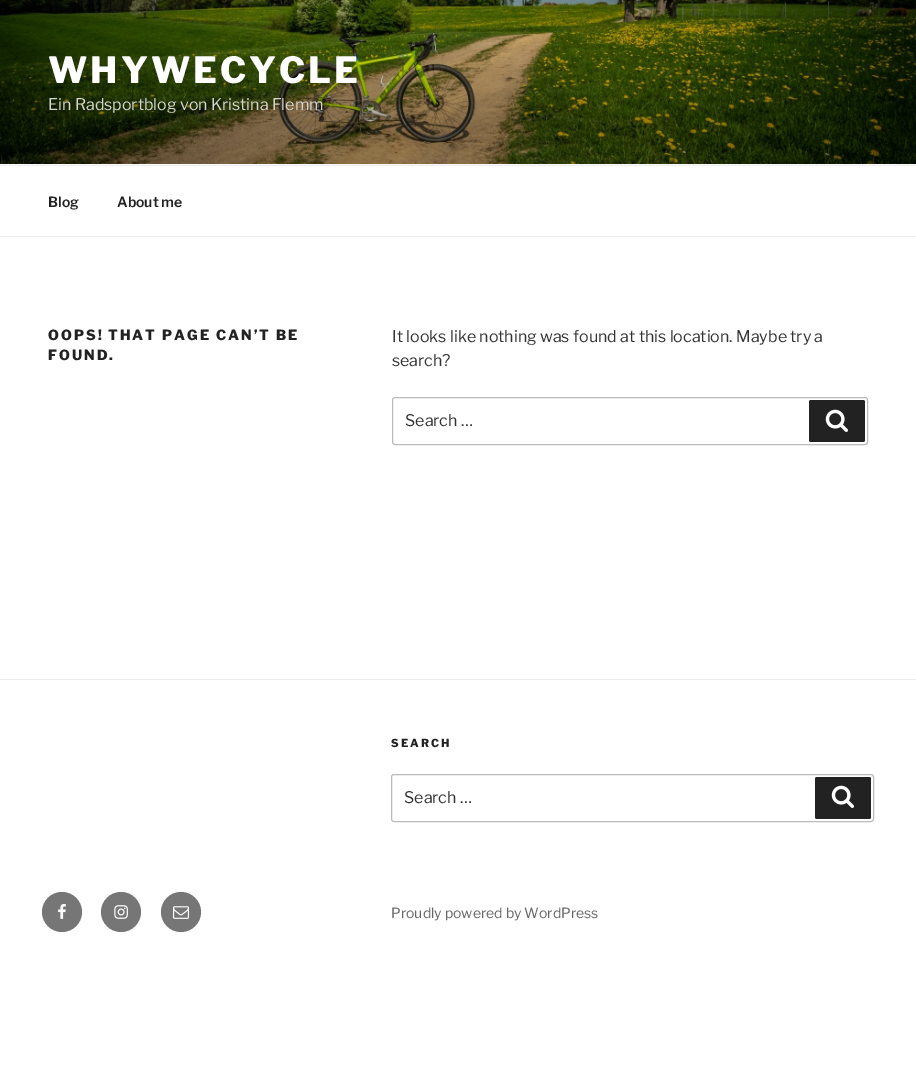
%!PS
<< /PageSize [916 1083] >> setpagedevice
/rgb { dup -16 bitshift 255 div exch dup -8 bitshift 255 and 255 div exch 255 and 255 div setrgbcolor } def
/font { [ exch dup neg 0 0 3 -1 roll 0 0 ] selectfont } def
/text { moveto show } def
/circle { newpath 0 360 arc closepath } def
/roundrect { 5 dict begin { /r /h /w /y /x } { exch def } forall
  x r add y moveto x w add y 2 copy h add r arct x w add y h add x 1 index r arct
  x y h add x y r arct x y 2 copy exch w add exch r arct closepath end } def
/picture { 5 dict begin { /h /w /y /x /name } { exch def } forall
  gsave x y translate w h scale
  w h 8 [w 0 0 h 0 0] name (r) file false 3 colorimage grestore end } def
0 1083 translate 1 -1 scale
4 setmiterlimit
/s1 { /LibreFranklin-Regular 16 font 16#D5D6CF rgb } def
/s2 { /LibreFranklin-SemiBold 14 font 16#222222 rgb } def
/s3 { /LibreFranklin-Regular 16 font 16#333333 rgb } def
/s4 { /LibreFranklin-Regular 14 font 16#666666 rgb } def
16#FFFFFF rgb
0 0 916 1083 rectfill
16#FAFAFA rgb
0 164 916 1 rectfill
(pic1.raw) 0 0 916 164 picture
/LibreFranklin-ExtraBold 36 font
16#FFFFFF rgb
48 83 moveto 2.9 0 (WHYWECYCLE) ashow
s1
(Ein Radsportblog von Kristina Flemm) 48 110 text
16#EEEEEE rgb
0 165 916 1 rectfill
0 236 916 1 rectfill
s2
(Blog) 48 207 text
(About me) 117 207 text
/LibreFranklin-ExtraBold 14 font
48 340 moveto 2 0 (OOPS! THAT PAGE CAN’T BE) ashow
48 360 moveto 2 0 (FOUND.) ashow
s3
(It looks like nothing was found at this location. Maybe try a) 392 342 text
(search?) 392 366 text
16#BBBBBB rgb
392.5 397.5 475 47 2.5 roundrect stroke
s3
(Search …) 405 426 text
16#222222 rgb
809 400 56 42 2 roundrect fill
(pic2.raw) 825 409 23 23 picture
16#EEEEEE rgb
0 679 916 1 rectfill
/LibreFranklin-ExtraBold 11 font
16#222222 rgb
391 747 moveto 2 0 (SEARCH) ashow
16#BBBBBB rgb
391.5 774.5 482 47 2.5 roundrect stroke
s3
(Search …) 404 803 text
16#222222 rgb
815 777 56 42 2 roundrect fill
(pic2.raw) 831 785 23 23 picture
16#767676 rgb
62 912 20 circle fill
(pic3.raw) 58 904 8 15 picture
121 912 20 circle fill
(pic4.raw) 114 905 14 14 picture
181 912 20 circle fill
(pic5.raw) 173 906 16 13 picture
s4
(Proudly powered by WordPress) 391 918 text
showpage
